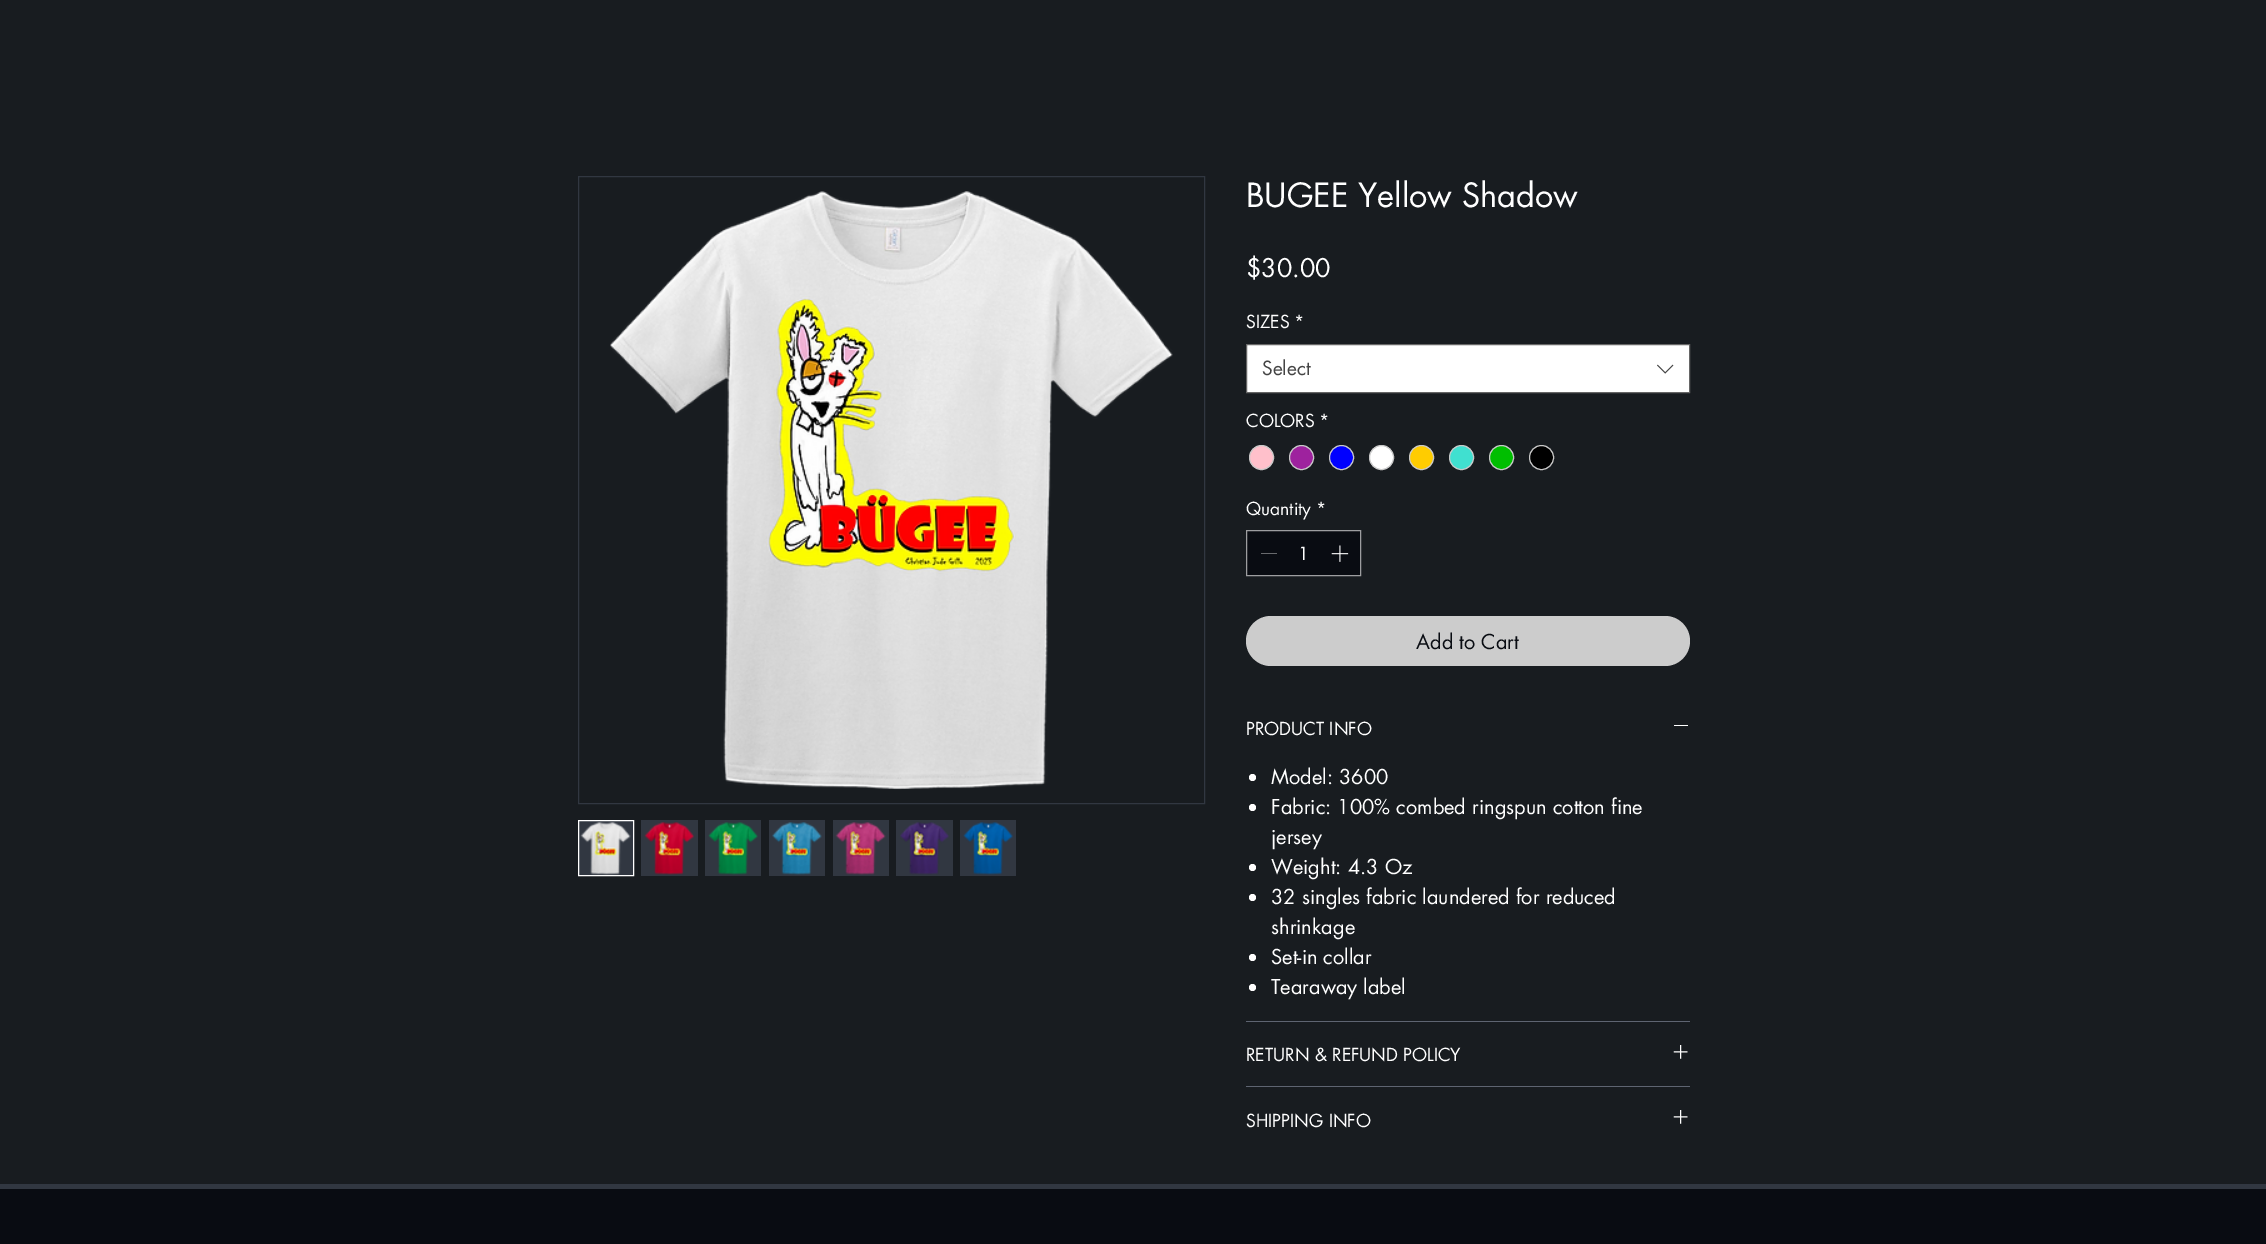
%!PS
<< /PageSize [2266 1244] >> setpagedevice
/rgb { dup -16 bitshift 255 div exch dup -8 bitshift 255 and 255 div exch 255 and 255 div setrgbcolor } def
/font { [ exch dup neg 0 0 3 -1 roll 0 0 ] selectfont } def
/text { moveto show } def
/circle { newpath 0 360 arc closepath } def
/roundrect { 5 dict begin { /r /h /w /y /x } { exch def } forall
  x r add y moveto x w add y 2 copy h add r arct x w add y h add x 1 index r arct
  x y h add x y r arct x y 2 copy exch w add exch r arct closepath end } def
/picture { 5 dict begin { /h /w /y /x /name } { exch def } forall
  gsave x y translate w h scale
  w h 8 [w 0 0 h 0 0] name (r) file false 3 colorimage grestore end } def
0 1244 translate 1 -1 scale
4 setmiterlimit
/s1 { /futura-Regular 32.5 font 16#FFFFFF rgb } def
/s2 { /futura-Regular 25 font 16#FFFFFF rgb } def
/s3 { /futura-Regular 17.5 font 16#FFFFFF rgb } def
/s4 { /futura-Regular 19 font 16#444444 rgb } def
/s5 { /futura-Regular 20 font 16#090C12 rgb } def
/s6 { /futura-Regular 20 font 16#FFFFFF rgb } def
16#090C12 rgb
0 0 2266 1244 rectfill
16#181C20 rgb
0 0 2266 1184 rectfill
16#313741 rgb
578.5 176.5 626 627 rectstroke
(pic1.raw) 610 191 563 599 picture
578.5 820.5 moveto 633.5 820.5 lineto 633.5 875.5 lineto 578.5 875.5 lineto closepath gsave fill grestore
16#FFFFFF rgb
stroke
(pic2.raw) 580 822 51 53 picture
16#313741 rgb
641 820 57 56 rectfill
(pic3.raw) 644 822 51 53 picture
705 820 56 56 rectfill
(pic4.raw) 708 822 50 53 picture
769 820 56 56 rectfill
(pic5.raw) 772 822 50 53 picture
833 820 56 56 rectfill
(pic6.raw) 835 822 51 53 picture
896 820 57 56 rectfill
(pic7.raw) 900 822 49 53 picture
960 820 56 56 rectfill
(pic8.raw) 963 822 50 53 picture
s1
(BUGEE Yellow Shadow) 1246 207 text
s2
($30.00) 1246 277 text
s3
(SIZES) 1246 328 text
(*) 1294 328 text
1246.5 344.5 moveto 1689.5 344.5 lineto 1689.5 392.5 lineto 1246.5 392.5 lineto closepath gsave fill grestore
16#666666 rgb
stroke
s4
(Select) 1262 375 text
(pic9.raw) 1657 364 17 10 picture
s3
(COLORS) 1246 427 text
(*) 1319 427 text
16#FFC0CB rgb
1261.5 457.5 12 circle gsave fill grestore
16#C9C9C9 rgb
stroke
16#9E229E rgb
1301.5 457.5 12 circle gsave fill grestore
16#C9C9C9 rgb
stroke
16#0000FF rgb
1341.5 457.5 12 circle gsave fill grestore
16#C9C9C9 rgb
stroke
16#FFFFFF rgb
1381.5 457.5 12 circle gsave fill grestore
16#C9C9C9 rgb
stroke
16#FFCC00 rgb
1421.5 457.5 12 circle gsave fill grestore
16#C9C9C9 rgb
stroke
16#40E0D0 rgb
1461.5 457.5 12 circle gsave fill grestore
16#C9C9C9 rgb
stroke
16#00BE00 rgb
1501.5 457.5 12 circle gsave fill grestore
16#C9C9C9 rgb
stroke
16#000000 rgb
1541.5 457.5 12 circle gsave fill grestore
16#C9C9C9 rgb
stroke
s3
(Quantity) 1246 515 text
(*) 1316 515 text
16#090C12 rgb
1246.5 530.5 moveto 1360.5 530.5 lineto 1360.5 575.5 lineto 1246.5 575.5 lineto closepath gsave fill grestore
16#9D9EA0 rgb
stroke
16#686A6D rgb
1261 553 16 1 rectfill
s3
(1) 1298 560 text
(pic10.raw) 1331 545 18 17 picture
16#CCCCCC rgb
1246 616 444 50 25 roundrect fill
s5
(Add to Cart) 1416 649 text
16#5E6471 rgb
1246 1021 444 1 rectfill
s3
(PRODUCT INFO) 1246 735 text
1674 725 14 1 rectfill
1252.5 777.5 3.5 circle fill
s6
(Model: 3600) 1271 784 text
1252.5 807.5 3.5 circle fill
(Fabric: 100% combed ringspun cotton fine) 1271 814 text
(jersey) 1271 844 text
1252.5 867.5 3.5 circle fill
(Weight: 4.3 Oz) 1271 874 text
1252.5 897.5 3.5 circle fill
(32 singles fabric laundered for reduced) 1271 904 text
(shrinkage) 1271 934 text
1252.5 957.5 3.5 circle fill
(Set-in collar) 1271 964 text
1252.5 987.5 3.5 circle fill
(Tearaway label) 1271 994 text
16#5E6471 rgb
1246 1086 444 1 rectfill
s3
(RETURN & REFUND POLICY) 1246 1061 text
(pic11.raw) 1673 1045 15 14 picture
(SHIPPING INFO) 1246 1127 text
(pic11.raw) 1673 1110 15 14 picture
16#313741 rgb
0 1184 2266 5 rectfill
showpage
